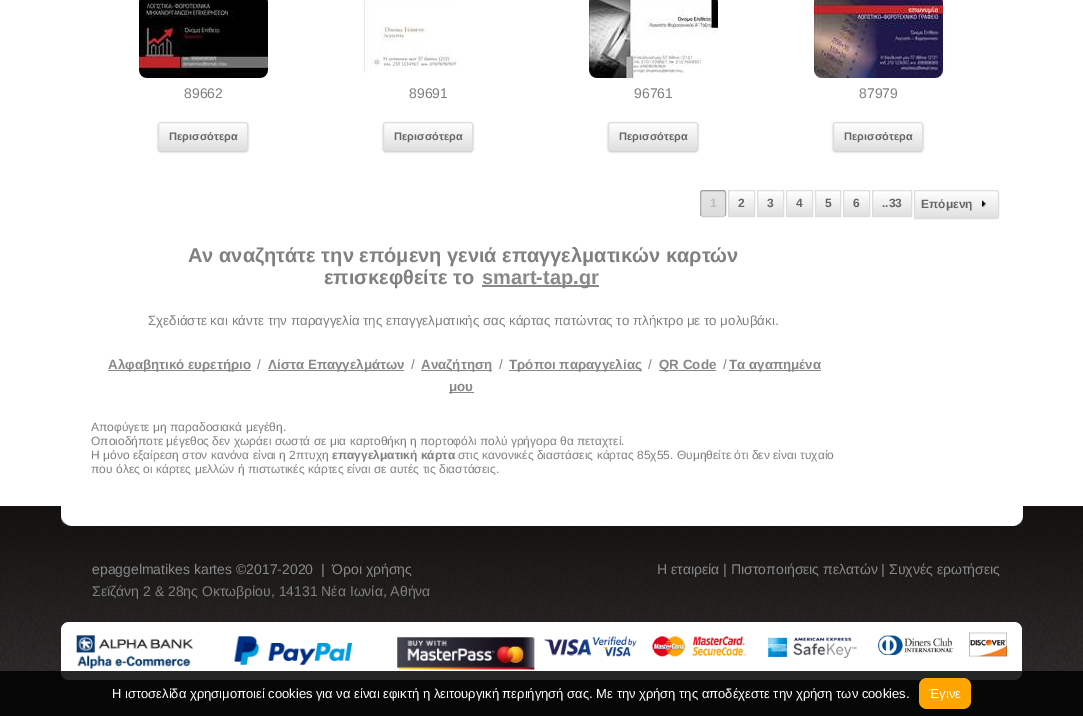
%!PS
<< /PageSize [1083 716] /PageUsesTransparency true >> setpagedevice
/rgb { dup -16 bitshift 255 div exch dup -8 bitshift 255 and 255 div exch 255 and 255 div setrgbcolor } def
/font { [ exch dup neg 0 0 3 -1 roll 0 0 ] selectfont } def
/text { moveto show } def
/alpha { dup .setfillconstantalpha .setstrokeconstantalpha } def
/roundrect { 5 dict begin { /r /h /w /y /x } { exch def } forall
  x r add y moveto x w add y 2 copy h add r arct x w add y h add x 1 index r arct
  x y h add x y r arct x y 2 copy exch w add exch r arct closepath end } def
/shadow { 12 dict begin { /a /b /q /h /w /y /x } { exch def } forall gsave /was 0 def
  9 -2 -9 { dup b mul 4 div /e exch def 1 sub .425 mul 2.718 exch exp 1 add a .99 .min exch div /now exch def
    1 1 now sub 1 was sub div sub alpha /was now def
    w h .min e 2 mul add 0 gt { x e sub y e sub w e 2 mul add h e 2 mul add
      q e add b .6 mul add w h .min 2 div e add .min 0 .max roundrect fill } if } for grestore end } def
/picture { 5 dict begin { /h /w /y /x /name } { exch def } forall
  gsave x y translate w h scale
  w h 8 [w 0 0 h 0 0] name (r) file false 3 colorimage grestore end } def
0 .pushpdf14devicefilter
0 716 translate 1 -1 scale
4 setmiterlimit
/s1 { /LiberationSans-Regular 14 font 16#808080 rgb } def
/s2 { /LiberationSans-Bold 11 font 16#666666 rgb } def
/s3 { /LiberationSans-Bold 12 font 16#BBBBBB rgb } def
/s4 { /LiberationSans-Bold 12 font 16#666666 rgb } def
/s5 { /LiberationSans-Bold 20 font 16#808080 rgb } def
/s6 { /LiberationSans-Bold 20 font 16#888888 rgb } def
/s7 { /LiberationSans-Regular 13.35 font 16#808080 rgb } def
/s8 { /LiberationSans-Bold 13.35 font 16#888888 rgb } def
/s9 { /LiberationSans-Regular 12 font 16#808080 rgb } def
/s10 { /LiberationSans-Bold 12 font 16#808080 rgb } def
/s11 { /LiberationSans-Regular 14 font 16#888888 rgb } def
/s12 { /LiberationSans-Regular 13 font 16#FFFFFF rgb } def
16#333130 rgb
0 0 1083 716 rectfill
16#FFFFFF rgb
0 0 1083 506 rectfill
(pic1.raw) 0 506 1083 205 picture
61 506 962 20 rectfill
(pic2.raw) 61 516 10 10 picture
(pic3.raw) 1014 516 9 10 picture
(pic4.raw) 139 0 129 78 picture
s1
(89662) 184 98 text
16#000000 rgb
158 123 90 29 3 1 0.25 shadow
gsave
158 122 90 29 3 roundrect clip newpath
gsave 158 123 moveto 248 123 lineto 248 150 lineto 158 150 lineto closepath clip newpath
<< /ShadingType 2 /ColorSpace /DeviceRGB /Coords [203 123 203 150] /Extend [true true] /Function << /FunctionType 2 /Domain [0 1] /C0 [1 1 1] /C1 [0.878 0.878 0.878] /N 1 >> >> shfill grestore
grestore
16#DDDDDD rgb
158.5 122.5 89 28 2.5 roundrect stroke
s2
(Περισσότερα) 169 140 text
(pic5.raw) 364 0 95 73 picture
s1
(89691) 409 98 text
16#000000 rgb
383 123 90 29 3 1 0.25 shadow
gsave
383 122 90 29 3 roundrect clip newpath
gsave 383 123 moveto 473 123 lineto 473 150 lineto 383 150 lineto closepath clip newpath
<< /ShadingType 2 /ColorSpace /DeviceRGB /Coords [428 123 428 150] /Extend [true true] /Function << /FunctionType 2 /Domain [0 1] /C0 [1 1 1] /C1 [0.878 0.878 0.878] /N 1 >> >> shfill grestore
grestore
16#DDDDDD rgb
383.5 122.5 89 28 2.5 roundrect stroke
s2
(Περισσότερα) 394 140 text
(pic6.raw) 589 0 129 78 picture
s1
(96761) 634 98 text
16#000000 rgb
608 123 90 29 3 1 0.25 shadow
gsave
608 122 90 29 3 roundrect clip newpath
gsave 608 123 moveto 698 123 lineto 698 150 lineto 608 150 lineto closepath clip newpath
<< /ShadingType 2 /ColorSpace /DeviceRGB /Coords [653 123 653 150] /Extend [true true] /Function << /FunctionType 2 /Domain [0 1] /C0 [1 1 1] /C1 [0.878 0.878 0.878] /N 1 >> >> shfill grestore
grestore
16#DDDDDD rgb
608.5 122.5 89 28 2.5 roundrect stroke
s2
(Περισσότερα) 619 140 text
(pic7.raw) 814 0 129 78 picture
s1
(87979) 859 98 text
16#000000 rgb
833 123 90 29 3 1 0.25 shadow
gsave
833 122 90 29 3 roundrect clip newpath
gsave 833 123 moveto 923 123 lineto 923 150 lineto 833 150 lineto closepath clip newpath
<< /ShadingType 2 /ColorSpace /DeviceRGB /Coords [878 123 878 150] /Extend [true true] /Function << /FunctionType 2 /Domain [0 1] /C0 [1 1 1] /C1 [0.878 0.878 0.878] /N 1 >> >> shfill grestore
grestore
16#DDDDDD rgb
833.5 122.5 89 28 2.5 roundrect stroke
s2
(Περισσότερα) 844 140 text
gsave
700 190 26 27 3 roundrect clip newpath
gsave 700 191 moveto 726 191 lineto 726 216 lineto 700 216 lineto closepath clip newpath
<< /ShadingType 2 /ColorSpace /DeviceRGB /Coords [713 191 713 216] /Extend [true true] /Function << /FunctionType 2 /Domain [0 1] /C0 [0.902 0.902 0.902] /C1 [0.863 0.863 0.863] /N 1 >> >> shfill grestore
grestore
16#999999 rgb
701 191 moveto 701.5 191 702.5 190.5 703 190.5 curveto 723 190.5 lineto 723.5 190.5 724.5 191 725 191 curveto stroke
16#AAAAAA rgb
725 191 moveto 725 191.5 725.5 192.5 725.5 193 curveto 725.5 214 lineto 725.5 214.5 725 215.5 725 216 curveto stroke
16#CCCCCC rgb
725 216 moveto 724.5 216 723.5 216.5 723 216.5 curveto 703 216.5 lineto 702.5 216.5 701.5 216 701 216 curveto stroke
16#AAAAAA rgb
701 216 moveto 701 215.5 700.5 214.5 700.5 214 curveto 700.5 193 lineto 700.5 192.5 701 191.5 701 191 curveto stroke
s3
(1) 710 207 text
gsave 729 193 moveto 754 193 lineto 754 216 lineto 729 216 lineto closepath clip newpath
<< /ShadingType 2 /ColorSpace /DeviceRGB /Coords [742 191 742 216] /Extend [true true] /Function << /FunctionType 2 /Domain [0 1] /C0 [1 1 1] /C1 [0.878 0.878 0.878] /N 1 >> >> shfill grestore
16#DDDDDD rgb
728.5 190.5 26 26 rectstroke
s4
(2) 738 207 text
gsave 758 193 moveto 783 193 lineto 783 216 lineto 758 216 lineto closepath clip newpath
<< /ShadingType 2 /ColorSpace /DeviceRGB /Coords [771 191 771 216] /Extend [true true] /Function << /FunctionType 2 /Domain [0 1] /C0 [1 1 1] /C1 [0.878 0.878 0.878] /N 1 >> >> shfill grestore
16#DDDDDD rgb
757.5 190.5 26 26 rectstroke
s4
(3) 767 207 text
gsave 787 193 moveto 812 193 lineto 812 216 lineto 787 216 lineto closepath clip newpath
<< /ShadingType 2 /ColorSpace /DeviceRGB /Coords [800 191 800 216] /Extend [true true] /Function << /FunctionType 2 /Domain [0 1] /C0 [1 1 1] /C1 [0.878 0.878 0.878] /N 1 >> >> shfill grestore
16#DDDDDD rgb
786.5 190.5 26 26 rectstroke
s4
(4) 796 207 text
gsave 816 193 moveto 840 193 lineto 840 216 lineto 816 216 lineto closepath clip newpath
<< /ShadingType 2 /ColorSpace /DeviceRGB /Coords [828 191 828 216] /Extend [true true] /Function << /FunctionType 2 /Domain [0 1] /C0 [1 1 1] /C1 [0.878 0.878 0.878] /N 1 >> >> shfill grestore
16#DDDDDD rgb
815.5 190.5 25 26 rectstroke
s4
(5) 825 207 text
gsave 844 193 moveto 869 193 lineto 869 216 lineto 844 216 lineto closepath clip newpath
<< /ShadingType 2 /ColorSpace /DeviceRGB /Coords [857 191 857 216] /Extend [true true] /Function << /FunctionType 2 /Domain [0 1] /C0 [1 1 1] /C1 [0.878 0.878 0.878] /N 1 >> >> shfill grestore
16#DDDDDD rgb
843.5 190.5 26 26 rectstroke
s4
(6) 853 207 text
gsave 873 193 moveto 911 193 lineto 911 216 lineto 873 216 lineto closepath clip newpath
<< /ShadingType 2 /ColorSpace /DeviceRGB /Coords [892 191 892 216] /Extend [true true] /Function << /FunctionType 2 /Domain [0 1] /C0 [1 1 1] /C1 [0.878 0.878 0.878] /N 1 >> >> shfill grestore
16#DDDDDD rgb
872.5 190.5 39 26 rectstroke
s4
(..33) 882 207 text
gsave
914 190 moveto 996 190 lineto 997.5 190 999 191.5 999 193 curveto 999 216 lineto 999 217.5 997.5 219 996 219 curveto 914 219 lineto closepath clip newpath
gsave 915 191 moveto 999 191 lineto 999 218 lineto 915 218 lineto closepath clip newpath
<< /ShadingType 2 /ColorSpace /DeviceRGB /Coords [957 191 957 218] /Extend [true true] /Function << /FunctionType 2 /Domain [0 1] /C0 [1 1 1] /C1 [0.878 0.878 0.878] /N 1 >> >> shfill grestore
grestore
16#DDDDDD rgb
914.5 190.5 moveto 996 190.5 lineto 997.5 190.5 998.5 191.5 998.5 193 curveto 998.5 216 lineto 998.5 217.5 997.5 218.5 996 218.5 curveto 914.5 218.5 lineto closepath stroke
s4
(Επόμενη) 921 208 text
(pic8.raw) 982 200 5 8 picture
s5
(Αν αναζητάτε την επόμενη γενιά επαγγελματικών καρτών) 188 262 text
(επισκεφθείτε το) 324 284 text
16#888888 rgb
482 285 117 2 rectfill
(smart-tap.gr) 482 284 text
s7
(Σχεδιάστε και κάντε την παραγγελία της επαγγελματικής σας κάρτας πατώντας το πλήκτρο με το μολυβάκι.) 148 325 text
16#888888 rgb
108 370 143 1 rectfill
s8
(Αλφαβητικό ευρετήριο) 108 369 text
s7
(/) 257 369 text
16#888888 rgb
268 370 136 1 rectfill
s8
(Λίστα Επαγγελμάτων) 268 369 text
s7
(/) 411 369 text
16#888888 rgb
421 370 71 1 rectfill
s8
(Αναζήτηση) 421 369 text
s7
(/) 499 369 text
16#888888 rgb
509 370 133 1 rectfill
s8
(Τρόποι παραγγελίας) 509 369 text
s7
(/) 648 369 text
16#888888 rgb
659 370 57 1 rectfill
s8
(QR Code) 659 369 text
s7
(/) 723 369 text
16#888888 rgb
729 370 92 1 rectfill
s8
(Τα αγαπημένα) 729 369 text
449 392 25 1 rectfill
(μου) 449 391 text
s9
(Αποφύγετε μη παραδοσιακά μεγέθη.) 91 431 text
(Οποιοδήποτε μέγεθος δεν χωράει σωστά σε μια καρτοθήκη η πορτοφόλι πολύ γρήγορα θα πεταχτεί.) 91 445 text
(Η μόνο εξαίρεση στον κανόνα είναι η 2πτυχη) 91 459 text
s10
(επαγγελματική κάρτα) 332 459 text
s9
(στις κανονικές διαστάσεις κάρτας 85χ55. Θυμηθείτε ότι δεν είναι τυχαίο) 458 459 text
(που όλες οι κάρτες μελλών ή πιστωτικές κάρτες είναι σε αυτές τις διαστάσεις.) 91 473 text
s11
(epaggelmatikes kartes ©2017-2020) 92 574 text
(|) 321 574 text
(Όροι χρήσης) 332 574 text
(Η εταιρεία) 657 574 text
s1
(|) 723 574 text
s11
(Πιστοποιήσεις πελατών) 731 574 text
s1
(|) 881 574 text
s11
(Συχνές ερωτήσεις) 889 574 text
s1
(Σεϊζάνη 2 & 28ης Οκτωβρίου, 14131 Νέα Ιωνία, Αθήνα) 92 596 text
16#FFFFFF rgb
61 622 961 58 8 roundrect fill
(pic9.raw) 76 635 459 35 picture
(pic10.raw) 544 632 463 26 picture
0.85 alpha
16#000000 rgb
0 671 1083 45 rectfill
1 alpha
s12
(Η ιστοσελίδα χρησιμοποιεί cookies για να είναι εφικτή η λειτουργική περιήγησή σας. Με την χρήση της αποδέχεστε την χρήση των cookies.) 112 698 text
16#FFA500 rgb
919 678 52 31 8 roundrect fill
s12
(Έγινε) 929 698 text
.poppdf14devicefilter showpage
